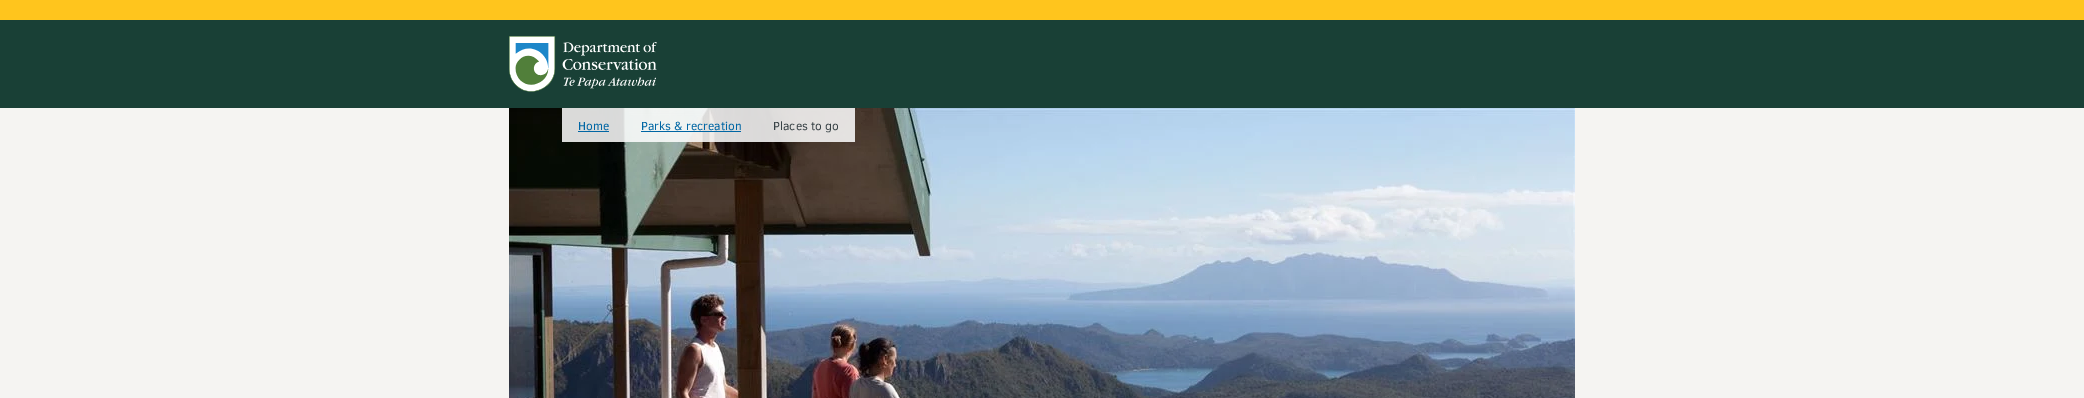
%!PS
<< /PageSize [2084 398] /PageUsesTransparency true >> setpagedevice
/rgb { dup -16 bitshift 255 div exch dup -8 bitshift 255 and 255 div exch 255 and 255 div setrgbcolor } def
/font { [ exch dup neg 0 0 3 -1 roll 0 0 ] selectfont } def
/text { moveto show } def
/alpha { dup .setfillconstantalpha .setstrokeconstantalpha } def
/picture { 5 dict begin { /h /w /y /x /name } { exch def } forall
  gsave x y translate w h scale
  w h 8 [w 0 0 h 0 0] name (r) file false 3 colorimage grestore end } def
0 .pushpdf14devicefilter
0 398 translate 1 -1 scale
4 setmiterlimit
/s1 { /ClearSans-Regular 12 font 16#0066A4 rgb } def
/s2 { /ClearSans-Regular 12 font 16#384246 rgb } def
16#F5F4F2 rgb
0 0 2084 398 rectfill
16#FFC51D rgb
0 0 2084 20 rectfill
16#194036 rgb
0 20 2084 88 rectfill
(pic1.raw) 509 36 148 56 picture
(pic2.raw) 509 108 1066 290 picture
0.85 alpha
16#FFFFFF rgb
562 108 293 34 rectfill
1 alpha
s1
(Home) 578 130 text
578 131 31 1 rectfill
(Parks & recreation) 641 130 text
641 131 100 1 rectfill
s2
(Places to go) 773 130 text
.poppdf14devicefilter showpage
